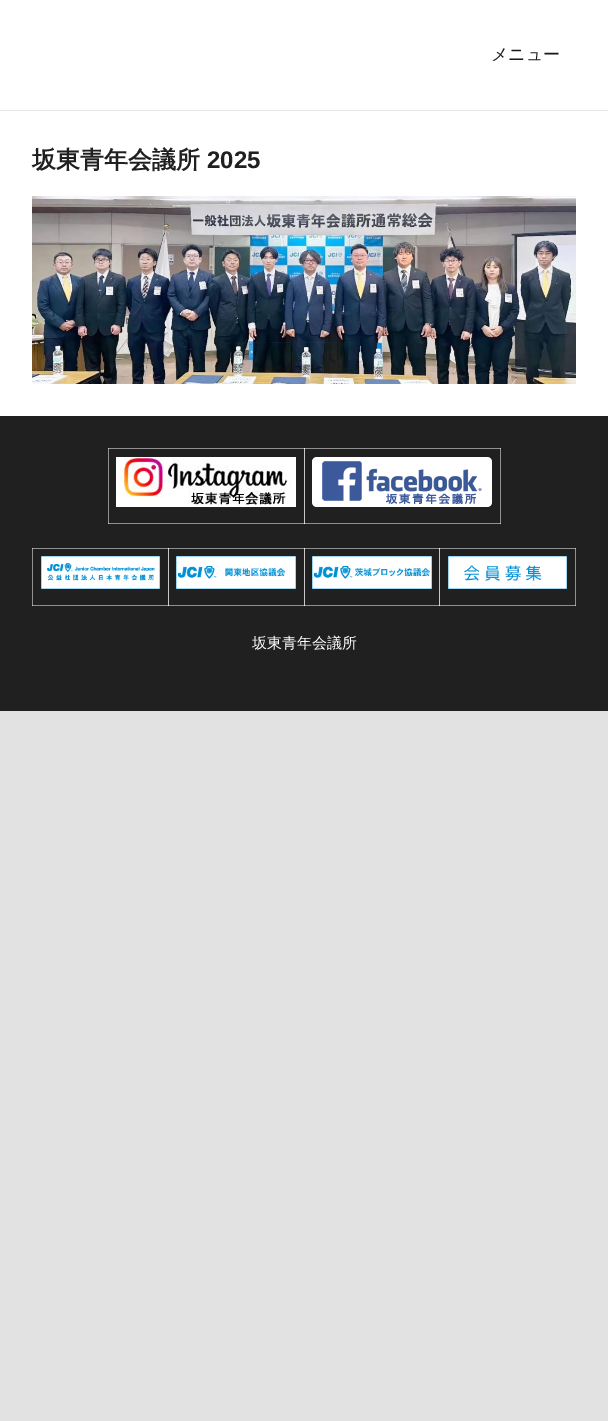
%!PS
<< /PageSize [608 1421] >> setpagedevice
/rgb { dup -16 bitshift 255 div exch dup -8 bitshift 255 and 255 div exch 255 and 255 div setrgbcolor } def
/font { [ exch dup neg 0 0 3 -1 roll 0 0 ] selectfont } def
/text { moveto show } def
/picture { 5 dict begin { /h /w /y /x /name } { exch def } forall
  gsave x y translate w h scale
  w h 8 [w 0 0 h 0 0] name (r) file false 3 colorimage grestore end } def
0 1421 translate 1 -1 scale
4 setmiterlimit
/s1 { /WenQuanYiZenHei-Medium 17 font 16#1A1A1A rgb } def
/s2 { /WenQuanYiZenHei-Bold 24 font 16#202020 rgb } def
/s3 { /LiberationSans-Bold 24 font 16#202020 rgb } def
/s4 { /WenQuanYiZenHei-Medium 15 font 16#FFFFFF rgb } def
16#E2E2E2 rgb
0 0 608 1421 rectfill
16#FFFFFF rgb
0 0 608 416 rectfill
16#E6E6E6 rgb
0 110 608 1 rectfill
s1
(メニュー) 491 60 text
s2
(坂東青年会議所) 32 168 text
s3
(2025) 207 168 text
(pic1.raw) 32 196 544 188 picture
0 416 608 295 rectfill
16#909090 rgb
32 548 1 58 rectfill
32 605 137 1 rectfill
16#C8C8C8 rgb
32 605 1 1 rectfill
16#909090 rgb
32 548 137 1 rectfill
16#C8C8C8 rgb
32 548 1 1 rectfill
168 548 1 58 rectfill
16#909090 rgb
168 605 137 1 rectfill
16#F2F2F2 rgb
168 605 1 1 rectfill
16#909090 rgb
168 548 137 1 rectfill
16#F2F2F2 rgb
168 548 1 1 rectfill
16#C8C8C8 rgb
304 548 1 58 rectfill
16#909090 rgb
304 605 136 1 rectfill
16#F2F2F2 rgb
304 605 1 1 rectfill
16#909090 rgb
304 548 136 1 rectfill
16#F2F2F2 rgb
304 548 1 1 rectfill
16#C8C8C8 rgb
439 548 1 58 rectfill
16#909090 rgb
439 605 137 1 rectfill
16#F2F2F2 rgb
439 605 1 1 rectfill
16#909090 rgb
575 548 1 58 rectfill
16#C8C8C8 rgb
575 605 1 1 rectfill
16#909090 rgb
108 448 1 76 rectfill
108 523 197 1 rectfill
16#C8C8C8 rgb
108 523 1 1 rectfill
16#909090 rgb
108 448 197 1 rectfill
16#C8C8C8 rgb
108 448 1 1 rectfill
304 448 1 76 rectfill
16#909090 rgb
304 523 197 1 rectfill
16#F2F2F2 rgb
304 523 1 1 rectfill
16#909090 rgb
500 448 1 76 rectfill
16#C8C8C8 rgb
500 523 1 1 rectfill
(pic2.raw) 116 457 180 50 picture
16#909090 rgb
304 448 197 1 rectfill
16#F2F2F2 rgb
304 448 1 1 rectfill
16#C8C8C8 rgb
500 448 1 1 rectfill
(pic3.raw) 312 457 180 50 picture
(pic4.raw) 41 556 119 33 picture
(pic5.raw) 176 556 120 33 picture
(pic6.raw) 312 556 120 33 picture
16#909090 rgb
439 548 137 1 rectfill
16#F2F2F2 rgb
439 548 1 1 rectfill
16#C8C8C8 rgb
575 548 1 1 rectfill
(pic7.raw) 448 556 119 33 picture
s4
(坂東青年会議所) 252 648 text
showpage
